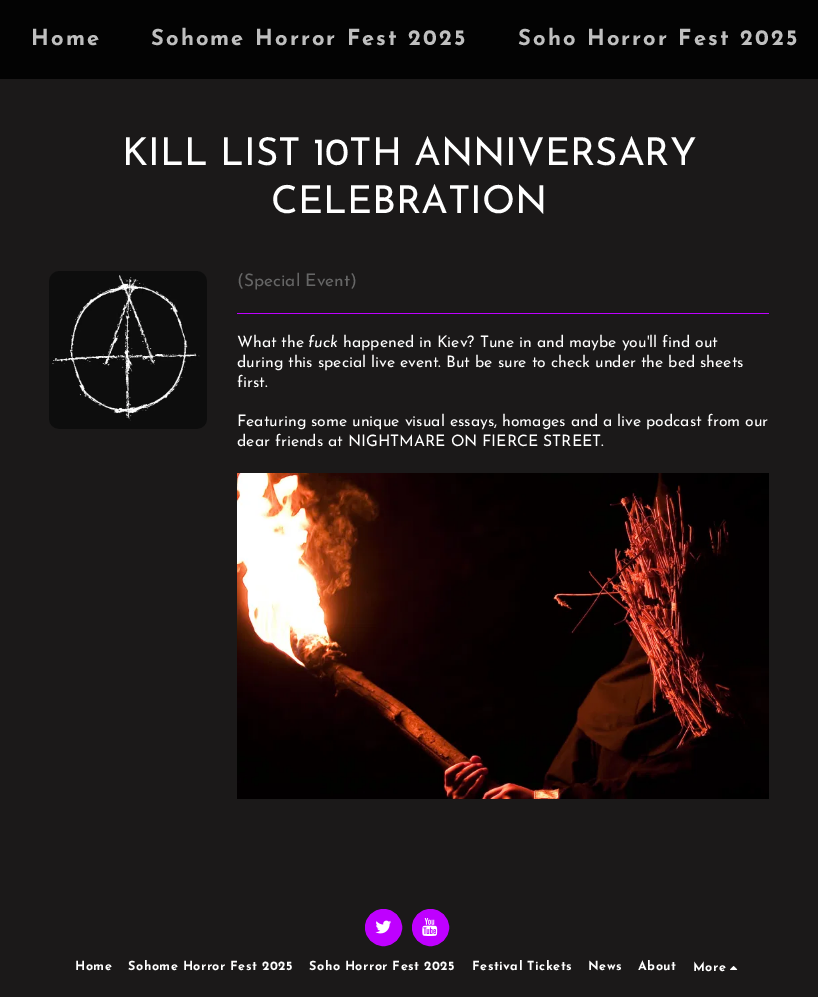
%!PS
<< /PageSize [818 997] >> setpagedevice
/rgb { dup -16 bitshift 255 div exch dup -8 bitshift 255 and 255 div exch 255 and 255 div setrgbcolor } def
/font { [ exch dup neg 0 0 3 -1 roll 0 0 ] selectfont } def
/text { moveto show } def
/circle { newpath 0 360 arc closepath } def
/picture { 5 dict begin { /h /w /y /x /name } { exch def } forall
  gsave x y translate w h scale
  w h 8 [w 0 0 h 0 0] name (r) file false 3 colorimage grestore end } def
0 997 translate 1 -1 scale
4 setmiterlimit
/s1 { /JosefinSans-Regular 38.5 font 16#FFFFFF rgb } def
/s2 { /JosefinSans-Regular 17.25 font 16#666666 rgb } def
/s3 { /JosefinSans-Regular 15.75 font 16#FFFFFF rgb } def
/s4 { /JosefinSans-Italic 15.75 font 16#FFFFFF rgb } def
16#1B1919 rgb
0 0 818 997 rectfill
16#030303 rgb
0 0 818 79 rectfill
/JosefinSans-Bold 22 font
16#BFBFBF rgb
31 45 moveto 2.1 0 (Home) ashow
151 45 moveto 2.1 0 (Sohome Horror Fest 2025) ashow
518 45 moveto 2.1 0 (Soho Horror Fest 2025) ashow
s1
(KILL LIST 10TH ANNIVERSARY) 122 165 text
(CELEBRATION) 271 213 text
(pic1.raw) 49 271 158 158 picture
s2
(\(Special Event\)) 237 286 text
16#BF00FF rgb
237 313 532 1 rectfill
s3
(What the) 237 347 text
s4
(fuck) 308 347 text
s3
(happened in Kiev? Tune in and maybe you'll find out) 343 347 text
(during this special live event. But be sure to check under the bed sheets) 237 367 text
(first.) 237 387 text
(Featuring some unique visual essays, homages and a live podcast from our) 237 426 text
(dear friends at NIGHTMARE ON FIERCE STREET.) 237 446 text
(pic2.raw) 237 473 532 326 picture
16#BF00FF rgb
383.5 927.5 18 circle gsave fill grestore
stroke
(pic3.raw) 375 920 16 14 picture
430.5 927.5 18 circle gsave fill grestore
stroke
(pic4.raw) 422 918 16 18 picture
/JosefinSans-Bold 12.6 font
16#FFFFFF rgb
75 970 moveto 0.5 0 (Home) ashow
128 970 moveto 0.5 0 (Sohome Horror Fest 2025) ashow
309 970 moveto 0.5 0 (Soho Horror Fest 2025) ashow
472 970 moveto 0.5 0 (Festival Tickets) ashow
588 970 moveto 0.5 0 (News) ashow
638 970 moveto 0.5 0 (About) ashow
693 971 moveto 0.5 0 (More) ashow
(pic5.raw) 730 966 8 4 picture
showpage
